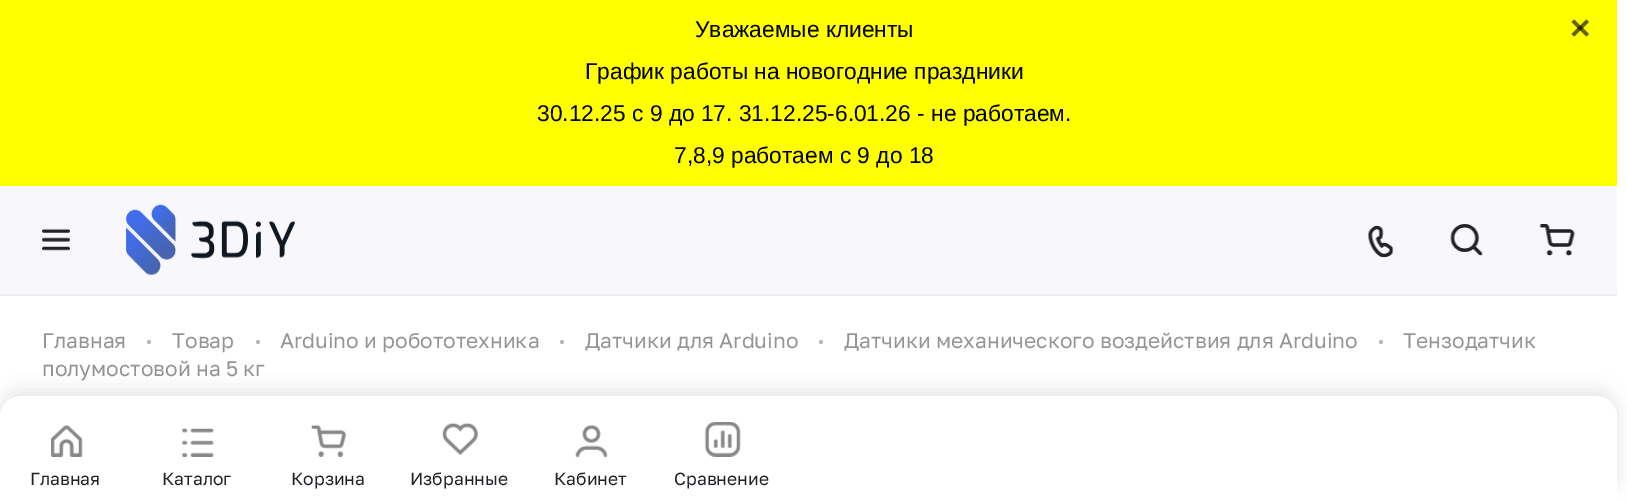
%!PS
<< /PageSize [1627 501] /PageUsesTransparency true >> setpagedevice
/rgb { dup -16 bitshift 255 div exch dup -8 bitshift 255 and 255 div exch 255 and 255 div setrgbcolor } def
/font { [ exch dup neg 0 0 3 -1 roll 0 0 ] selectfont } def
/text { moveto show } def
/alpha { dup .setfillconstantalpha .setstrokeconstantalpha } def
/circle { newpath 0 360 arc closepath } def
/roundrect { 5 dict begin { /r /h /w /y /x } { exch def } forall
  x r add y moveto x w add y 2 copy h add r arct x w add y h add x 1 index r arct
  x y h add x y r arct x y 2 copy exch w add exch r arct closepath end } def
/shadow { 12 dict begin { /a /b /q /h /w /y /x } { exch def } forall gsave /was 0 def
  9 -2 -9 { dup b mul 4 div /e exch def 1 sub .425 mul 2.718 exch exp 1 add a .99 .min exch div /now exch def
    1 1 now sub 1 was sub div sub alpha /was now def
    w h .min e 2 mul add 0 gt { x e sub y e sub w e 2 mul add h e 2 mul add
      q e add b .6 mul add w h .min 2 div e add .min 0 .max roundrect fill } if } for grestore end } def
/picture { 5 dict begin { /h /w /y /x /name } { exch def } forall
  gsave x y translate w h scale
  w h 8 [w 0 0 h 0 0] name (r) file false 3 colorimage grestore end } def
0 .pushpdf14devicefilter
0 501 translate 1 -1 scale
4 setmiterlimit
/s1 { /LiberationSans-Regular 22.75 font 16#000000 rgb } def
/s2 { /GolosText-Regular 21 font 16#959598 rgb } def
/s3 { /GolosText-Regular 17.5 font 16#222228 rgb } def
16#FFFFFF rgb
0 0 1627 501 rectfill
16#FFFF00 rgb
0 0 1617 186 rectfill
s1
(Уважаемые клиенты) 695 37 text
(График работы на новогодние праздники) 585 79 text
(30.12.25 с 9 до 17. 31.12.25-6.01.26 - не работаем.) 537 121 text
(7,8,9 работаем с 9 до 18) 674 163 text
16#626200 rgb
1574 19.5 moveto 1589 34 lineto 1586.5 36.5 lineto 1571.5 22 lineto closepath fill
0.62 alpha
16#000000 rgb
1571.5 34 moveto 1586.5 19.5 lineto 1589 22 lineto 1574 36.5 lineto closepath fill
1 alpha
16#EBECEF rgb
0 294 1617 2 rectfill
16#F8F8FC rgb
0 186 1617 108 rectfill
(pic1.raw) 42 228 28 23 picture
(pic2.raw) 126 204 169 71 picture
(pic3.raw) 1368 225 26 33 picture
(pic4.raw) 1450 224 33 32 picture
(pic5.raw) 1539 224 36 32 picture
s2
(Главная) 42 348 text
16#B8B8B9 rgb
149 342 2 circle fill
s2
(Товар) 172 348 text
16#B8B8B9 rgb
258 342 2 circle fill
s2
(Arduino и робототехника) 280 348 text
16#B8B8B9 rgb
562 342 2 circle fill
s2
(Датчики для Arduino) 585 348 text
16#B8B8B9 rgb
821 342 2 circle fill
s2
(Датчики механического воздействия для Arduino) 844 348 text
16#B8B8B9 rgb
1381 342 2 circle fill
s2
(Тензодатчик) 1403 348 text
(полумостовой на 5 кг) 42 376 text
16#000000 rgb
0 390 1617 107 21 9 0.1 shadow
16#FFFFFF rgb
21 396 moveto 1596 396 lineto 1607.5 396 1617 405.5 1617 417 curveto 1617 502 lineto 0 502 lineto 0 417 lineto 0 405.5 9.5 396 21 396 curveto closepath fill
(pic6.raw) 51 424 32 33 picture
s3
(Главная) 30 485 text
(pic7.raw) 181 428 33 29 picture
(Каталог) 162 485 text
(pic8.raw) 311 424 35 33 picture
(Корзина) 291 485 text
(pic9.raw) 442 422 36 33 picture
(Избранные) 410 485 text
(pic10.raw) 575 424 33 33 picture
(Кабинет) 554 485 text
(pic11.raw) 704 422 37 35 picture
(Сравнение) 674 485 text
.poppdf14devicefilter showpage
